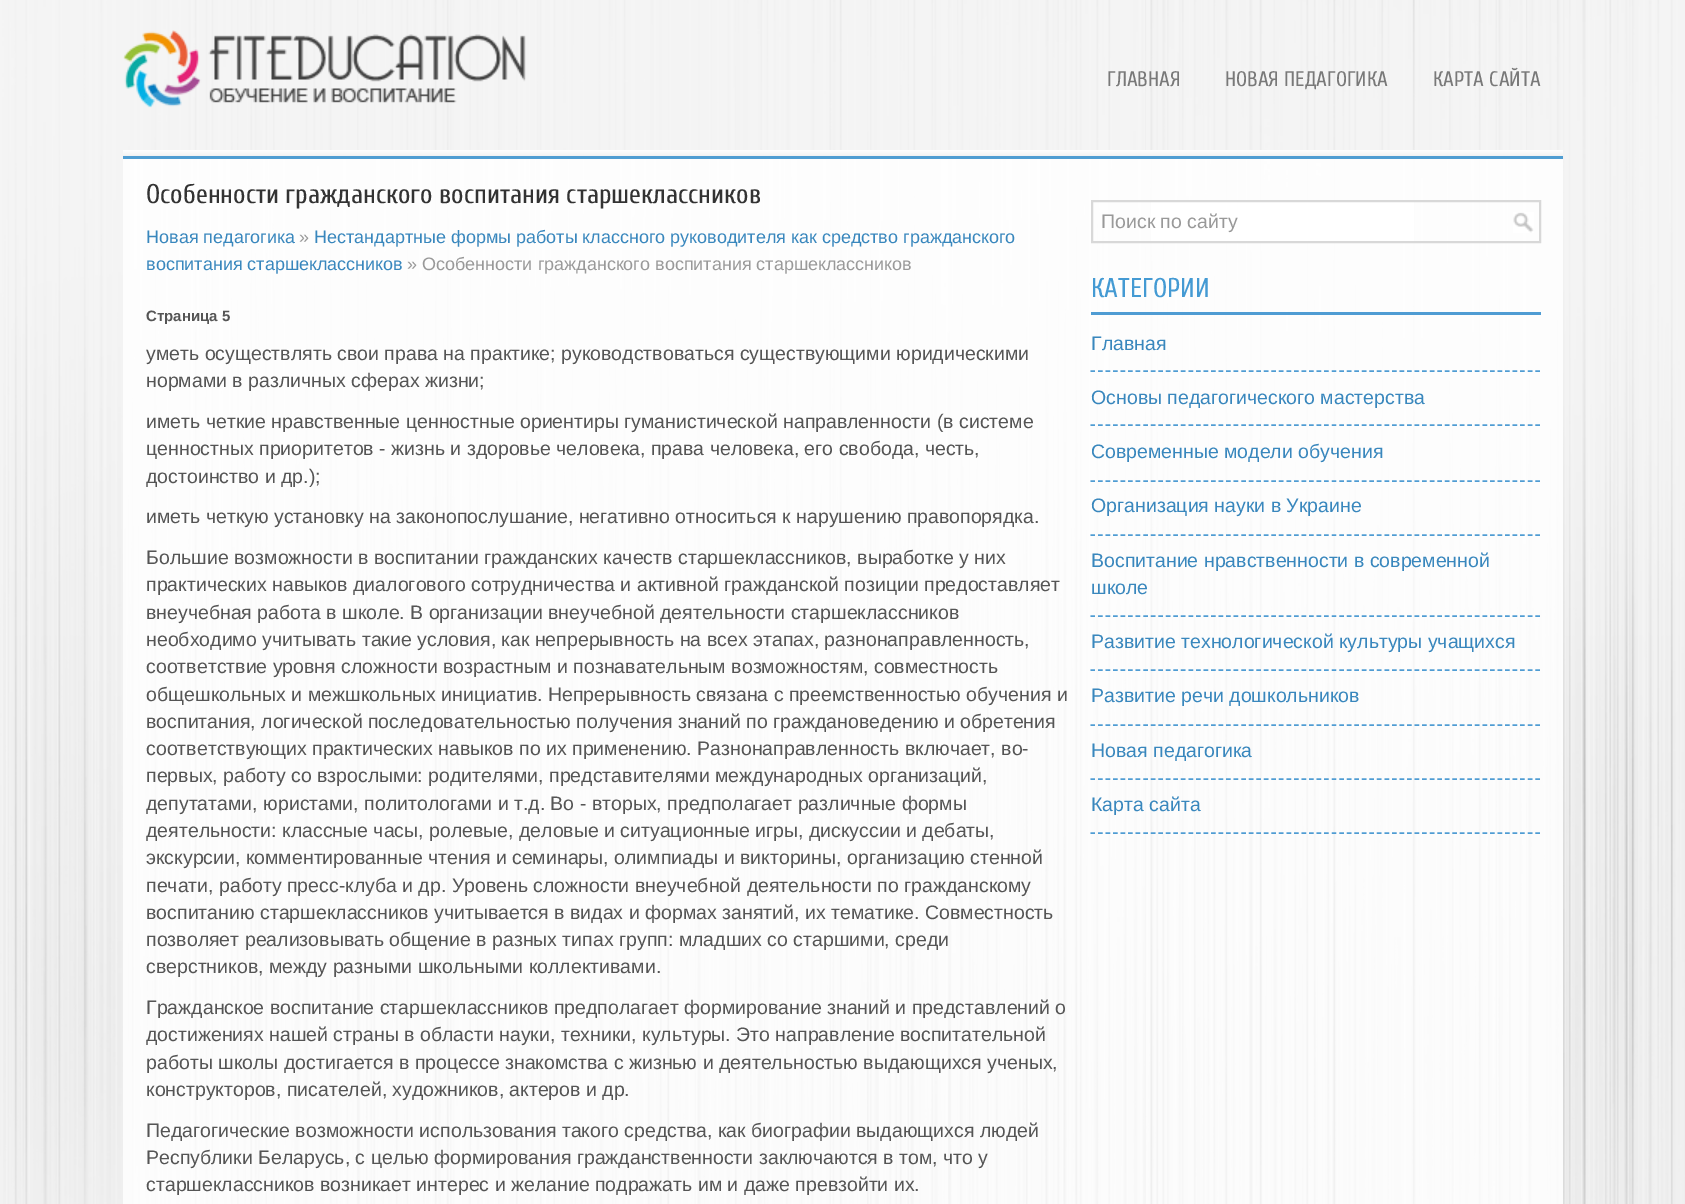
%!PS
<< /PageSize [1685 1204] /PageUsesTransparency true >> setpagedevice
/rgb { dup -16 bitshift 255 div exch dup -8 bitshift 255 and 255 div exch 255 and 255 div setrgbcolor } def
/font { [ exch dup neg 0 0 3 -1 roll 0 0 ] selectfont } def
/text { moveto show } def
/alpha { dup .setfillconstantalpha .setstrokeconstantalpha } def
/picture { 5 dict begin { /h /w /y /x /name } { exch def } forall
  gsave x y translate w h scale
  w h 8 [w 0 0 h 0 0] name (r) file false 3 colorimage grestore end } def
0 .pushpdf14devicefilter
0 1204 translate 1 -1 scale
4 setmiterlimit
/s1 { /Cuprum-Regular 21 font 16#797979 rgb } def
/s2 { /Cuprum-Regular 27 font 16#333333 rgb } def
/s3 { /LiberationSans-Regular 18 font 16#3987BD rgb } def
/s4 { /LiberationSans-Regular 18 font 16#999999 rgb } def
/s5 { /LiberationSans-Bold 15 font 16#555555 rgb } def
/s6 { /LiberationSans-Regular 19.5 font 16#555555 rgb } def
/s7 { /LiberationSans-Regular 19.5 font 16#999999 rgb } def
/s8 { /Cuprum-Regular 27 font 16#449AD3 rgb } def
/s9 { /LiberationSans-Regular 19.5 font 16#3987BD rgb } def
16#FFFFFF rgb
0 0 1685 1204 rectfill
(pic1.raw) 0 0 1685 1204 picture
(pic2.raw) 123 30 403 78 picture
s1
(ГЛАВНАЯ) 1107 86 text
(НОВАЯ ПЕДАГОГИКА) 1225 86 text
(КАРТА САЙТА) 1433 86 text
gsave 123 150 moveto 1563 150 lineto 1563 156 lineto 123 156 lineto closepath clip newpath
<< /ShadingType 2 /ColorSpace /DeviceRGB /Coords [843 150 843 156] /Extend [true true] /Function << /FunctionType 2 /Domain [0 1] /C0 [0.996 0.996 0.996] /C1 [0.949 0.949 0.949] /N 1 >> >> shfill grestore
16#4F9DD2 rgb
123 156 1440 3 rectfill
0.85 alpha
16#FFFFFF rgb
123 159 1440 1045 rectfill
1 alpha
s2
(Особенности гражданского воспитания старшеклассников) 146 203 text
s3
(Новая педагогика) 146 243 text
s4
(») 299 243 text
s3
(Нестандартные формы работы классного руководителя как средство гражданского) 314 243 text
(воспитания старшеклассников) 146 270 text
s4
(» Особенности гражданского воспитания старшеклассников) 407 270 text
s5
(Страница 5) 146 321 text
s6
(уметь осуществлять свои права на практике; руководствоваться существующими юридическими) 146 360 text
(нормами в различных сферах жизни;) 146 387 text
(иметь четкие нравственные ценностные ориентиры гуманистической направленности \(в системе) 146 428 text
(ценностных приоритетов - жизнь и здоровье человека, права человека, его свобода, честь,) 146 455 text
gsave
146 182 922 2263 rectclip
(достоинство и др.\);) 146 483 text
grestore
(иметь четкую установку на законопослушание, негативно относиться к нарушению правопорядка.) 146 523 text
(Большие возможности в воспитании гражданских качеств старшеклассников, выработке у них) 146 564 text
(практических навыков диалогового сотрудничества и активной гражданской позиции предоставляет) 146 591 text
(внеучебная работа в школе. В организации внеучебной деятельности старшеклассников) 146 619 text
(необходимо учитывать такие условия, как непрерывность на всех этапах, разнонаправленность,) 146 646 text
(соответствие уровня сложности возрастным и познавательным возможностям, совместность) 146 673 text
(общешкольных и межшкольных инициатив. Непрерывность связана с преемственностью обучения и) 146 701 text
(воспитания, логической последовательностью получения знаний по граждановедению и обретения) 146 728 text
(соответствующих практических навыков по их применению. Разнонаправленность включает, во-) 146 755 text
(первых, работу со взрослыми: родителями, представителями международных организаций,) 146 782 text
gsave
146 182 922 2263 rectclip
(депутатами, юристами, политологами и т.д. Во - вторых, предполагает различные формы) 146 810 text
(деятельности: классные часы, ролевые, деловые и ситуационные игры, дискуссии и дебаты,) 146 837 text
grestore
(экскурсии, комментированные чтения и семинары, олимпиады и викторины, организацию стенной) 146 864 text
(печати, работу пресс-клуба и др. Уровень сложности внеучебной деятельности по гражданскому) 146 892 text
(воспитанию старшеклассников учитывается в видах и формах занятий, их тематике. Совместность) 146 919 text
(позволяет реализовывать общение в разных типах групп: младших со старшими, среди) 146 946 text
(сверстников, между разными школьными коллективами.) 146 973 text
(Гражданское воспитание старшеклассников предполагает формирование знаний и представлений о) 146 1014 text
gsave
146 182 922 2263 rectclip
(достижениях нашей страны в области науки, техники, культуры. Это направление воспитательной) 146 1041 text
grestore
(работы школы достигается в процессе знакомства с жизнью и деятельностью выдающихся ученых,) 146 1069 text
(конструкторов, писателей, художников, актеров и др.) 146 1096 text
(Педагогические возможности использования такого средства, как биографии выдающихся людей) 146 1137 text
(Республики Беларусь, с целью формирования гражданственности заключаются в том, что у) 146 1164 text
(старшеклассников возникает интерес и желание подражать им и даже превзойти их.) 146 1191 text
16#FFFFFF rgb
1151 202 263 39 rectfill
(pic3.raw) 1513 212 21 21 picture
16#D8D8D8 rgb
2 setlinewidth
1092 201 448 41 rectstroke
s7
(Поиск по сайту) 1101 228 text
16#4F9CD3 rgb
1091 312 450 3 rectfill
s8
(КАТЕГОРИИ) 1091 297 text
16#4F9CD3 rgb
1.5 setlinewidth
[4.5 3.04] 0 setdash
1090.5 371 moveto 1540.5 371 lineto stroke
s9
(Главная) 1091 350 text
16#4F9CD3 rgb
1090.5 425 moveto 1540.5 425 lineto stroke
s9
(Основы педагогического мастерства) 1091 404 text
16#4F9CD3 rgb
1090.5 481 moveto 1540.5 481 lineto stroke
s9
(Современные модели обучения) 1091 458 text
16#4F9CD3 rgb
1090.5 535 moveto 1540.5 535 lineto stroke
s9
(Организация науки в Украине) 1091 512 text
16#4F9CD3 rgb
1090.5 616 moveto 1540.5 616 lineto stroke
s9
(Воспитание нравственности в современной) 1091 567 text
(школе) 1091 594 text
16#4F9CD3 rgb
1090.5 670 moveto 1540.5 670 lineto stroke
s9
(Развитие технологической культуры учащихся) 1091 648 text
16#4F9CD3 rgb
1090.5 725 moveto 1540.5 725 lineto stroke
s9
(Развитие речи дошкольников) 1091 702 text
16#4F9CD3 rgb
1090.5 779 moveto 1540.5 779 lineto stroke
s9
(Новая педагогика) 1091 757 text
16#4F9CD3 rgb
1090.5 833 moveto 1540.5 833 lineto stroke
s9
(Карта сайта) 1091 811 text
.poppdf14devicefilter showpage
